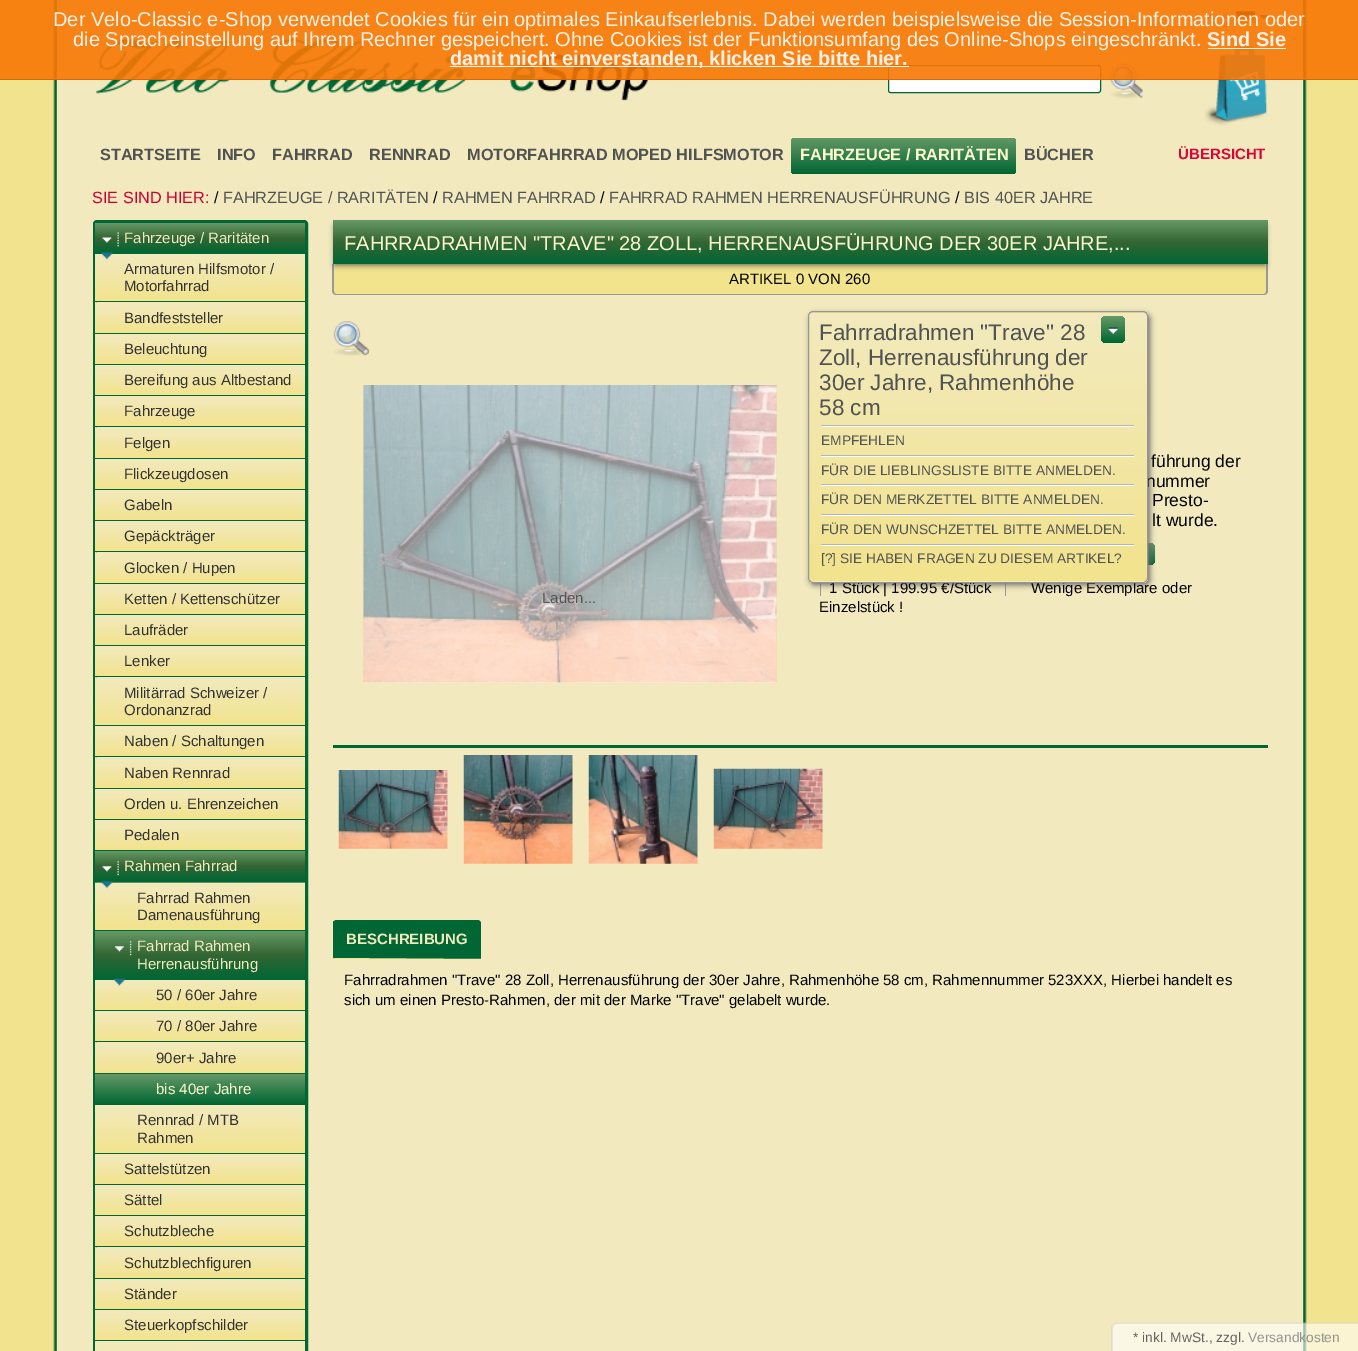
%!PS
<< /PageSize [1358 1351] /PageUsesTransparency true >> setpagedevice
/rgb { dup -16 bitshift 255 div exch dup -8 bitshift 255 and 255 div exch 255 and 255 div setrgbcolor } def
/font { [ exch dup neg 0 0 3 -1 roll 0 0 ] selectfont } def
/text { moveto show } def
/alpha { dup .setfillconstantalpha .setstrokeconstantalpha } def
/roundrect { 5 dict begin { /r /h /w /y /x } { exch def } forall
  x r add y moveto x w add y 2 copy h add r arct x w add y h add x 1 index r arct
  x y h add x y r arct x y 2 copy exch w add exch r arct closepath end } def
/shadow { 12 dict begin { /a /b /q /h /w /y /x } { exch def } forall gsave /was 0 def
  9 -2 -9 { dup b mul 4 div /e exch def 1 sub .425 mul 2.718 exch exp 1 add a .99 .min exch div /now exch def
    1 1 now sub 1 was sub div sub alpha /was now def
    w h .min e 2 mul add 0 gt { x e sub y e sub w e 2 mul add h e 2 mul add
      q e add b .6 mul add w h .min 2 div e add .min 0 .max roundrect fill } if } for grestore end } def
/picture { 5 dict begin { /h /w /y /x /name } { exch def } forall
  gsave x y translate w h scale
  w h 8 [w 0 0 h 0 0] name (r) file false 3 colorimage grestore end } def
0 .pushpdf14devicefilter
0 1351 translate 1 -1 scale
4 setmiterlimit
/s1 { /LiberationSans-Regular 20 font 16#FEF2E8 rgb } def
/s2 { /LiberationSans-Bold 20 font 16#FEF2E8 rgb } def
/s3 { /LiberationSans-Bold 16.25 font 16#515353 rgb } def
/s4 { /LiberationSans-Bold 16.25 font 16#FDF9CE rgb } def
/s5 { /LiberationSans-Bold 15 font 16#DD0339 rgb } def
/s6 { /LiberationSans-Regular 20 font 16#FDF9CE rgb } def
/s7 { /LiberationSans-Regular 15 font 16#000000 rgb } def
/s8 { /LiberationSans-Regular 15 font 16#575657 rgb } def
/s9 { /LiberationSans-Regular 17.5 font 16#000000 rgb } def
/s10 { /LiberationSans-Regular 22.5 font 16#515353 rgb } def
/s11 { /LiberationSans-Regular 13.75 font 16#515353 rgb } def
/s12 { /LiberationSans-Bold 15 font 16#F2EABE rgb } def
/s13 { /LiberationSans-Regular 16.25 font 16#CC0033 rgb } def
/s14 { /LiberationSans-Regular 16.25 font 16#000000 rgb } def
/s15 { /LiberationSans-Regular 16.25 font 16#515353 rgb } def
/s16 { /LiberationSans-Regular 15 font 16#F2EABE rgb } def
/s17 { /LiberationSans-Regular 15 font 16#333333 rgb } def
/s18 { /LiberationSans-Regular 15 font 16#FDF9CE rgb } def
/s19 { /LiberationSans-Regular 13.75 font 16#64635C rgb } def
/s20 { /LiberationSans-Regular 13.75 font 16#93938A rgb } def
16#F2EABE rgb
0 0 1358 1351 rectfill
16#F9F5DF rgb
364 682 412 1 rectfill
(pic1.raw) 0 0 1358 1351 picture
(pic2.raw) 992 12 2 13 picture
(pic3.raw) 1131 13 2 14 picture
(pic4.raw) 1203 15 9 4 picture
16#B4B8B8 rgb
1223 13 4 14 rectfill
(pic5.raw) 1260 15 8 4 picture
(pic6.raw) 1236 11 19 13 picture
(pic7.raw) 96 38 553 63 picture
16#FFFFFF rgb
888.5 65.5 212 27 2 roundrect gsave fill grestore
16#006633 rgb
stroke
(pic8.raw) 1110 63 33 36 picture
(pic9.raw) 1204 46 63 80 picture
0.9 alpha
16#F77704 rgb
0 0 1358 80 rectfill
16#D36706 rgb
0 79 1358 1 rectfill
1 alpha
s1
(Der Velo-Classic e-Shop verwendet Cookies für ein optimales Einkaufserlebnis. Dabei werden beispielsweise die Session-Informationen oder) 53 26 text
(die Spracheinstellung auf Ihrem Rechner gespeichert. Ohne Cookies ist der Funktionsumfang des Online-Shops eingeschränkt.) 73 46 text
s2
(Sind Sie) 1207 46 text
0.9 alpha
16#FFFFFF rgb
1208 48 78 1 rectfill
450 66 459 1 rectfill
1 alpha
s2
(damit nicht einverstanden, klicken Sie bitte hier.) 450 65 text
s3
(STARTSEITE) 100 160 text
(INFO) 217 160 text
(FAHRRAD) 272 160 text
(RENNRAD) 369 160 text
(MOTORFAHRRAD MOPED HILFSMOTOR) 467 160 text
gsave 791 138 225 36 4 roundrect clip newpath
<< /ShadingType 2 /ColorSpace /DeviceRGB /Coords [904 137 904 174] /Extend [true true] /Function << /FunctionType 2 /Domain [0 1] /C0 [0.4 0.6 0.4] /C1 [0 0.4 0.2] /N 1 >> >> shfill grestore
s4
(FAHRZEUGE / RARITÄTEN) 800 160 text
s3
(BÜCHER) 1024 160 text
s5
(ÜBERSICHT) 1178 159 text
16#F2E38D rgb
333 264 moveto 1268 264 lineto 1268 291 lineto 1268 293 1266 295 1264 295 curveto 337 295 lineto 335 295 333 293 333 291 curveto closepath fill
16#999999 rgb
332 264 moveto 1268 264 lineto 1268 291 lineto 1268 293 1266 295 1264 295 curveto 336 295 lineto 334 295 332 293 332 291 curveto closepath 334 264 moveto 1266 264 lineto 1266 291 lineto 1266 293 1265 294 1264 294 curveto 336 294 lineto 335 294 334 293 334 291 curveto closepath eofill
16#555555 rgb
335 226 930 39 0 3 1 shadow
gsave 333 220 moveto 1268 220 lineto 1268 264 lineto 333 264 lineto closepath clip newpath
<< /ShadingType 2 /ColorSpace /DeviceRGB /Coords [800 220 800 264] /Extend [true true] /Function << /FunctionType 3 /Domain [0 1] /Functions [<< /FunctionType 2 /Domain [0 1] /C0 [0.4 0.6 0.4] /C1 [0.2 0.4 0.2] /N 1 >> << /FunctionType 2 /Domain [0 1] /C0 [0.2 0.4 0.2] /C1 [0 0.4 0.2] /N 1 >>] /Bounds [0.5] /Encode [0 1 0 1] >> >> shfill grestore
s6
(FAHRRADRAHMEN "TRAVE" 28 ZOLL, HERRENAUSFÜHRUNG DER 30ER JAHRE,...) 344 250 text
s7
(ARTIKEL 0 VON 260) 729 284 text
(pic10.raw) 333 321 37 35 picture
(pic11.raw) 363 385 414 298 picture
s8
(Laden...) 542 603 text
gsave 988 543 167 22 5 roundrect clip newpath
<< /ShadingType 2 /ColorSpace /DeviceRGB /Coords [1071 543 1071 565] /Extend [true true] /Function << /FunctionType 2 /Domain [0 1] /C0 [0.4 0.6 0.4] /C1 [0 0.4 0.2] /N 1 >> >> shfill grestore
16#999999 rgb
820 579 1 17 rectfill
1005 579 1 17 rectfill
16#666666 rgb
810 314 340 271 5 3 1 shadow
s9
(nummer) 1146 487 text
gsave
808 311 340 272 5 roundrect clip newpath
gsave 808 313 moveto 1148 313 lineto 1148 581 lineto 808 581 lineto closepath clip newpath
<< /ShadingType 2 /ColorSpace /DeviceRGB /Coords [978 313 978 581] /Extend [true true] /Function << /FunctionType 2 /Domain [0 1] /C0 [0.949 0.918 0.745] /C1 [0.949 0.89 0.553] /N 1 >> >> shfill grestore
gsave 808 311 moveto 1148 311 lineto 1148 313 lineto 808 313 lineto closepath clip newpath
<< /ShadingType 2 /ColorSpace /DeviceRGB /Coords [978 44 978 313] /Extend [true true] /Function << /FunctionType 2 /Domain [0 1] /C0 [0.949 0.918 0.745] /C1 [0.949 0.89 0.553] /N 1 >> >> shfill grestore
grestore
s7
(1 Stück | 199.95 €/Stück) 829 593 text
(Wenige Exemplare oder) 1031 593 text
gsave
808 311 340 272 5 roundrect clip newpath
gsave 808 581 moveto 1148 581 lineto 1148 583 lineto 808 583 lineto closepath clip newpath
<< /ShadingType 2 /ColorSpace /DeviceRGB /Coords [978 581 978 850] /Extend [true true] /Function << /FunctionType 2 /Domain [0 1] /C0 [0.949 0.918 0.745] /C1 [0.949 0.89 0.553] /N 1 >> >> shfill grestore
grestore
16#979797 rgb
808.5 311.5 339 271 4.5 roundrect stroke
s10
(Fahrradrahmen "Trave" 28) 819 340 text
(Zoll, Herrenausführung der) 819 365 text
(30er Jahre, Rahmenhöhe) 819 390 text
(58 cm) 819 415 text
gsave 1101 316 24 27 5 roundrect clip newpath
<< /ShadingType 2 /ColorSpace /DeviceRGB /Coords [1113 316 1113 343] /Extend [true true] /Function << /FunctionType 2 /Domain [0 1] /C0 [0.4 0.6 0.4] /C1 [0 0.4 0.2] /N 1 >> >> shfill grestore
(pic12.raw) 1108 327 10 7 picture
16#B2B6B6 rgb
821 425 313 1 rectfill
16#FFFFFF rgb
821 426 313 1 rectfill
16#B2B6B6 rgb
821 455 313 1 rectfill
s11
(EMPFEHLEN) 821 445 text
16#FFFFFF rgb
821 456 313 1 rectfill
16#B2B6B6 rgb
821 484 313 1 rectfill
s11
(FÜR DIE LIEBLINGSLISTE BITTE ANMELDEN.) 821 475 text
16#FFFFFF rgb
821 485 313 1 rectfill
16#B2B6B6 rgb
821 514 313 1 rectfill
s11
(FÜR DEN MERKZETTEL BITTE ANMELDEN.) 821 504 text
16#FFFFFF rgb
821 515 313 1 rectfill
16#B2B6B6 rgb
821 544 313 1 rectfill
s11
(FÜR DEN WUNSCHZETTEL BITTE ANMELDEN.) 821 534 text
16#FFFFFF rgb
821 545 313 1 rectfill
s11
([?] SIE HABEN FRAGEN ZU DIESEM ARTIKEL?) 821 563 text
s9
(führung der) 1151 467 text
(Presto-) 1152 506 text
(lt wurde.) 1152 526 text
s7
(Einzelstück !) 819 612 text
16#006633 rgb
333 745 935 3 rectfill
(pic13.raw) 338 770 110 79 picture
(pic14.raw) 463 755 110 109 picture
(pic15.raw) 588 755 110 109 picture
(pic16.raw) 713 768 110 81 picture
337 920 moveto 477 920 lineto 479 920 481 922 481 924 curveto 481 959 lineto 333 959 lineto 333 924 lineto 333 922 335 920 337 920 curveto closepath fill
336 920 moveto 334 921 lineto 334 922 lineto 335 921 lineto 478 921 lineto 479 922 lineto 480 921 lineto 478 920 lineto closepath fill
480 921 moveto 480.5 922 481 923 481 924 curveto 481 958.5 lineto 480 957.5 lineto 480 924 lineto 480 923 480 922.5 479.5 922 curveto closepath fill
16#F2E38D rgb
481 958 moveto 332 959 lineto 334 957 lineto 334 958 lineto 480 958 lineto closepath fill
gsave
333 920 935 39 rectclip
16#006633 rgb
332.5 959 moveto 332.5 922 lineto 333.5 921 lineto 334.5 922 lineto 334 924 lineto 334 957 lineto closepath fill
grestore
s12
(BESCHREIBUNG) 346 944 text
s7
(Fahrradrahmen "Trave" 28 Zoll, Herrenausführung der 30er Jahre, Rahmenhöhe 58 cm, Rahmennummer 523XXX, Hierbei handelt es) 344 985 text
(sich um einen Presto-Rahmen, der mit der Marke "Trave" gelabelt wurde.) 344 1005 text
s13
(SIE SIND HIER:) 92 203 text
s14
(/) 214 203 text
s15
(FAHRZEUGE / RARITÄTEN) 223 203 text
s14
(/) 433 203 text
s15
(RAHMEN FAHRRAD) 442 203 text
s14
(/) 600 203 text
s15
(FAHRRAD RAHMEN HERRENAUSFÜHRUNG) 609 203 text
s14
(/) 955 203 text
s15
(BIS 40ER JAHRE) 964 203 text
16#006633 rgb
3 setlinewidth
94.5 221.5 212 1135 2.5 roundrect stroke
gsave 95 223 moveto 305 223 lineto 305 253 lineto 95 253 lineto closepath clip newpath
<< /ShadingType 2 /ColorSpace /DeviceRGB /Coords [200 223 200 253] /Extend [true true] /Function << /FunctionType 3 /Domain [0 1] /Functions [<< /FunctionType 2 /Domain [0 1] /C0 [0.4 0.6 0.4] /C1 [0.2 0.4 0.2] /N 1 >> << /FunctionType 2 /Domain [0 1] /C0 [0.2 0.4 0.2] /C1 [0 0.4 0.2] /N 1 >>] /Bounds [0.5] /Encode [0 1 0 1] >> >> shfill grestore
95 253 210 1 rectfill
(pic17.raw) 102 232 17 15 picture
gsave 95 254 moveto 305 254 lineto 305 301 lineto 95 301 lineto closepath clip newpath
<< /ShadingType 2 /ColorSpace /DeviceRGB /Coords [200 254 200 301] /Extend [true true] /Function << /FunctionType 2 /Domain [0 1] /C0 [0.949 0.918 0.745] /C1 [0.949 0.89 0.553] /N 1 >> >> shfill grestore
(pic18.raw) 101 252 12 8 picture
s16
(Fahrzeuge / Raritäten) 124 243 text
gsave 95 302 moveto 96 302 lineto 96 303 lineto 95 303 lineto closepath clip newpath
<< /ShadingType 2 /ColorSpace /DeviceRGB /Coords [200 301 200 349] /Extend [true true] /Function << /FunctionType 2 /Domain [0 1] /C0 [0.949 0.918 0.745] /C1 [0.949 0.89 0.553] /N 1 >> >> shfill grestore
16#006633 rgb
95 301 210 1 rectfill
s17
(Armaturen Hilfsmotor /) 124 274 text
(Motorfahrrad) 124 291 text
gsave 95 303 moveto 305 303 lineto 305 333 lineto 95 333 lineto closepath clip newpath
<< /ShadingType 2 /ColorSpace /DeviceRGB /Coords [200 303 200 333] /Extend [true true] /Function << /FunctionType 2 /Domain [0 1] /C0 [0.949 0.918 0.745] /C1 [0.949 0.89 0.553] /N 1 >> >> shfill grestore
16#006633 rgb
95 333 210 1 rectfill
s17
(Bandfeststeller) 124 323 text
gsave 95 334 moveto 305 334 lineto 305 364 lineto 95 364 lineto closepath clip newpath
<< /ShadingType 2 /ColorSpace /DeviceRGB /Coords [200 334 200 364] /Extend [true true] /Function << /FunctionType 2 /Domain [0 1] /C0 [0.949 0.918 0.745] /C1 [0.949 0.89 0.553] /N 1 >> >> shfill grestore
16#006633 rgb
95 364 210 1 rectfill
s17
(Beleuchtung) 124 354 text
gsave 95 365 moveto 305 365 lineto 305 395 lineto 95 395 lineto closepath clip newpath
<< /ShadingType 2 /ColorSpace /DeviceRGB /Coords [200 365 200 395] /Extend [true true] /Function << /FunctionType 2 /Domain [0 1] /C0 [0.949 0.918 0.745] /C1 [0.949 0.89 0.553] /N 1 >> >> shfill grestore
16#006633 rgb
95 395 210 1 rectfill
s17
(Bereifung aus Altbestand) 124 385 text
gsave 95 396 moveto 305 396 lineto 305 426 lineto 95 426 lineto closepath clip newpath
<< /ShadingType 2 /ColorSpace /DeviceRGB /Coords [200 396 200 426] /Extend [true true] /Function << /FunctionType 2 /Domain [0 1] /C0 [0.949 0.918 0.745] /C1 [0.949 0.89 0.553] /N 1 >> >> shfill grestore
gsave 95 427 moveto 96 427 lineto 96 428 lineto 95 428 lineto closepath clip newpath
<< /ShadingType 2 /ColorSpace /DeviceRGB /Coords [200 426 200 456] /Extend [true true] /Function << /FunctionType 2 /Domain [0 1] /C0 [0.949 0.918 0.745] /C1 [0.949 0.89 0.553] /N 1 >> >> shfill grestore
16#006633 rgb
95 426 210 1 rectfill
s17
(Fahrzeuge) 124 416 text
gsave 95 428 moveto 305 428 lineto 305 458 lineto 95 458 lineto closepath clip newpath
<< /ShadingType 2 /ColorSpace /DeviceRGB /Coords [200 428 200 458] /Extend [true true] /Function << /FunctionType 2 /Domain [0 1] /C0 [0.949 0.918 0.745] /C1 [0.949 0.89 0.553] /N 1 >> >> shfill grestore
16#006633 rgb
95 458 210 1 rectfill
s17
(Felgen) 124 448 text
gsave 95 459 moveto 305 459 lineto 305 489 lineto 95 489 lineto closepath clip newpath
<< /ShadingType 2 /ColorSpace /DeviceRGB /Coords [200 459 200 489] /Extend [true true] /Function << /FunctionType 2 /Domain [0 1] /C0 [0.949 0.918 0.745] /C1 [0.949 0.89 0.553] /N 1 >> >> shfill grestore
16#006633 rgb
95 489 210 1 rectfill
s17
(Flickzeugdosen) 124 479 text
gsave 95 490 moveto 305 490 lineto 305 520 lineto 95 520 lineto closepath clip newpath
<< /ShadingType 2 /ColorSpace /DeviceRGB /Coords [200 490 200 520] /Extend [true true] /Function << /FunctionType 2 /Domain [0 1] /C0 [0.949 0.918 0.745] /C1 [0.949 0.89 0.553] /N 1 >> >> shfill grestore
16#006633 rgb
95 520 210 1 rectfill
s17
(Gabeln) 124 510 text
gsave 95 521 moveto 305 521 lineto 305 551 lineto 95 551 lineto closepath clip newpath
<< /ShadingType 2 /ColorSpace /DeviceRGB /Coords [200 521 200 551] /Extend [true true] /Function << /FunctionType 2 /Domain [0 1] /C0 [0.949 0.918 0.745] /C1 [0.949 0.89 0.553] /N 1 >> >> shfill grestore
gsave 95 552 moveto 96 552 lineto 96 553 lineto 95 553 lineto closepath clip newpath
<< /ShadingType 2 /ColorSpace /DeviceRGB /Coords [200 551 200 581] /Extend [true true] /Function << /FunctionType 2 /Domain [0 1] /C0 [0.949 0.918 0.745] /C1 [0.949 0.89 0.553] /N 1 >> >> shfill grestore
16#006633 rgb
95 551 210 1 rectfill
s17
(Gepäckträger) 124 541 text
gsave 95 553 moveto 305 553 lineto 305 583 lineto 95 583 lineto closepath clip newpath
<< /ShadingType 2 /ColorSpace /DeviceRGB /Coords [200 553 200 583] /Extend [true true] /Function << /FunctionType 2 /Domain [0 1] /C0 [0.949 0.918 0.745] /C1 [0.949 0.89 0.553] /N 1 >> >> shfill grestore
16#006633 rgb
95 583 210 1 rectfill
s17
(Glocken / Hupen) 124 573 text
gsave 95 584 moveto 305 584 lineto 305 614 lineto 95 614 lineto closepath clip newpath
<< /ShadingType 2 /ColorSpace /DeviceRGB /Coords [200 584 200 614] /Extend [true true] /Function << /FunctionType 2 /Domain [0 1] /C0 [0.949 0.918 0.745] /C1 [0.949 0.89 0.553] /N 1 >> >> shfill grestore
16#006633 rgb
95 614 210 1 rectfill
s17
(Ketten / Kettenschützer) 124 604 text
gsave 95 615 moveto 305 615 lineto 305 645 lineto 95 645 lineto closepath clip newpath
<< /ShadingType 2 /ColorSpace /DeviceRGB /Coords [200 615 200 645] /Extend [true true] /Function << /FunctionType 2 /Domain [0 1] /C0 [0.949 0.918 0.745] /C1 [0.949 0.89 0.553] /N 1 >> >> shfill grestore
16#006633 rgb
95 645 210 1 rectfill
s17
(Laufräder) 124 635 text
gsave 95 646 moveto 305 646 lineto 305 676 lineto 95 676 lineto closepath clip newpath
<< /ShadingType 2 /ColorSpace /DeviceRGB /Coords [200 646 200 676] /Extend [true true] /Function << /FunctionType 2 /Domain [0 1] /C0 [0.949 0.918 0.745] /C1 [0.949 0.89 0.553] /N 1 >> >> shfill grestore
gsave 95 677 moveto 96 677 lineto 96 678 lineto 95 678 lineto closepath clip newpath
<< /ShadingType 2 /ColorSpace /DeviceRGB /Coords [200 676 200 706] /Extend [true true] /Function << /FunctionType 2 /Domain [0 1] /C0 [0.949 0.918 0.745] /C1 [0.949 0.89 0.553] /N 1 >> >> shfill grestore
16#006633 rgb
95 676 210 1 rectfill
s17
(Lenker) 124 666 text
gsave 95 678 moveto 305 678 lineto 305 725 lineto 95 725 lineto closepath clip newpath
<< /ShadingType 2 /ColorSpace /DeviceRGB /Coords [200 678 200 725] /Extend [true true] /Function << /FunctionType 2 /Domain [0 1] /C0 [0.949 0.918 0.745] /C1 [0.949 0.89 0.553] /N 1 >> >> shfill grestore
16#006633 rgb
95 725 210 1 rectfill
s17
(Militärrad Schweizer /) 124 698 text
(Ordonanzrad) 124 715 text
gsave 95 726 moveto 305 726 lineto 305 756 lineto 95 756 lineto closepath clip newpath
<< /ShadingType 2 /ColorSpace /DeviceRGB /Coords [200 726 200 756] /Extend [true true] /Function << /FunctionType 2 /Domain [0 1] /C0 [0.949 0.918 0.745] /C1 [0.949 0.89 0.553] /N 1 >> >> shfill grestore
gsave 95 757 moveto 96 757 lineto 96 758 lineto 95 758 lineto closepath clip newpath
<< /ShadingType 2 /ColorSpace /DeviceRGB /Coords [200 756 200 786] /Extend [true true] /Function << /FunctionType 2 /Domain [0 1] /C0 [0.949 0.918 0.745] /C1 [0.949 0.89 0.553] /N 1 >> >> shfill grestore
16#006633 rgb
95 756 210 1 rectfill
s17
(Naben / Schaltungen) 124 746 text
gsave 95 758 moveto 305 758 lineto 305 788 lineto 95 788 lineto closepath clip newpath
<< /ShadingType 2 /ColorSpace /DeviceRGB /Coords [200 758 200 788] /Extend [true true] /Function << /FunctionType 2 /Domain [0 1] /C0 [0.949 0.918 0.745] /C1 [0.949 0.89 0.553] /N 1 >> >> shfill grestore
16#006633 rgb
95 788 210 1 rectfill
s17
(Naben Rennrad) 124 778 text
gsave 95 789 moveto 305 789 lineto 305 819 lineto 95 819 lineto closepath clip newpath
<< /ShadingType 2 /ColorSpace /DeviceRGB /Coords [200 789 200 819] /Extend [true true] /Function << /FunctionType 2 /Domain [0 1] /C0 [0.949 0.918 0.745] /C1 [0.949 0.89 0.553] /N 1 >> >> shfill grestore
16#006633 rgb
95 819 210 1 rectfill
s17
(Orden u. Ehrenzeichen) 124 809 text
gsave 95 820 moveto 305 820 lineto 305 850 lineto 95 850 lineto closepath clip newpath
<< /ShadingType 2 /ColorSpace /DeviceRGB /Coords [200 820 200 850] /Extend [true true] /Function << /FunctionType 2 /Domain [0 1] /C0 [0.949 0.918 0.745] /C1 [0.949 0.89 0.553] /N 1 >> >> shfill grestore
16#006633 rgb
95 850 210 1 rectfill
s17
(Pedalen) 124 840 text
gsave 95 851 moveto 305 851 lineto 305 881 lineto 95 881 lineto closepath clip newpath
<< /ShadingType 2 /ColorSpace /DeviceRGB /Coords [200 851 200 881] /Extend [true true] /Function << /FunctionType 3 /Domain [0 1] /Functions [<< /FunctionType 2 /Domain [0 1] /C0 [0.4 0.6 0.4] /C1 [0.2 0.4 0.2] /N 1 >> << /FunctionType 2 /Domain [0 1] /C0 [0.2 0.4 0.2] /C1 [0 0.4 0.2] /N 1 >>] /Bounds [0.5] /Encode [0 1 0 1] >> >> shfill grestore
gsave 95 882 moveto 305 882 lineto 305 883 lineto 95 883 lineto closepath clip newpath
<< /ShadingType 2 /ColorSpace /DeviceRGB /Coords [200 881 200 911] /Extend [true true] /Function << /FunctionType 3 /Domain [0 1] /Functions [<< /FunctionType 2 /Domain [0 1] /C0 [0.4 0.6 0.4] /C1 [0.2 0.4 0.2] /N 1 >> << /FunctionType 2 /Domain [0 1] /C0 [0.2 0.4 0.2] /C1 [0 0.4 0.2] /N 1 >>] /Bounds [0.5] /Encode [0 1 0 1] >> >> shfill grestore
16#006633 rgb
95 881 210 1 rectfill
(pic19.raw) 102 861 17 15 picture
gsave 95 883 moveto 305 883 lineto 305 930 lineto 95 930 lineto closepath clip newpath
<< /ShadingType 2 /ColorSpace /DeviceRGB /Coords [200 883 200 930] /Extend [true true] /Function << /FunctionType 2 /Domain [0 1] /C0 [0.949 0.918 0.745] /C1 [0.949 0.89 0.553] /N 1 >> >> shfill grestore
(pic20.raw) 101 881 12 8 picture
s16
(Rahmen Fahrrad) 124 871 text
16#006633 rgb
95 930 210 1 rectfill
s17
(Fahrrad Rahmen) 137 903 text
(Damenausführung) 137 920 text
gsave 95 931 moveto 305 931 lineto 305 979 lineto 95 979 lineto closepath clip newpath
<< /ShadingType 2 /ColorSpace /DeviceRGB /Coords [200 931 200 979] /Extend [true true] /Function << /FunctionType 3 /Domain [0 1] /Functions [<< /FunctionType 2 /Domain [0 1] /C0 [0.4 0.6 0.4] /C1 [0.2 0.4 0.2] /N 1 >> << /FunctionType 2 /Domain [0 1] /C0 [0.2 0.4 0.2] /C1 [0 0.4 0.2] /N 1 >>] /Bounds [0.5] /Encode [0 1 0 1] >> >> shfill grestore
16#006633 rgb
95 979 210 1 rectfill
(pic21.raw) 115 941 17 15 picture
gsave 95 980 moveto 305 980 lineto 305 1010 lineto 95 1010 lineto closepath clip newpath
<< /ShadingType 2 /ColorSpace /DeviceRGB /Coords [200 980 200 1010] /Extend [true true] /Function << /FunctionType 2 /Domain [0 1] /C0 [0.949 0.918 0.745] /C1 [0.949 0.89 0.553] /N 1 >> >> shfill grestore
(pic22.raw) 113 978 13 9 picture
s16
(Fahrrad Rahmen) 137 951 text
(Herrenausführung) 137 969 text
16#006633 rgb
95 1010 210 1 rectfill
s17
(50 / 60er Jahre) 156 1000 text
gsave 95 1011 moveto 305 1011 lineto 305 1041 lineto 95 1041 lineto closepath clip newpath
<< /ShadingType 2 /ColorSpace /DeviceRGB /Coords [200 1011 200 1041] /Extend [true true] /Function << /FunctionType 2 /Domain [0 1] /C0 [0.949 0.918 0.745] /C1 [0.949 0.89 0.553] /N 1 >> >> shfill grestore
gsave 95 1042 moveto 96 1042 lineto 96 1043 lineto 95 1043 lineto closepath clip newpath
<< /ShadingType 2 /ColorSpace /DeviceRGB /Coords [200 1041 200 1071] /Extend [true true] /Function << /FunctionType 2 /Domain [0 1] /C0 [0.949 0.918 0.745] /C1 [0.949 0.89 0.553] /N 1 >> >> shfill grestore
16#006633 rgb
95 1041 210 1 rectfill
s17
(70 / 80er Jahre) 156 1031 text
gsave 95 1043 moveto 305 1043 lineto 305 1073 lineto 95 1073 lineto closepath clip newpath
<< /ShadingType 2 /ColorSpace /DeviceRGB /Coords [200 1043 200 1073] /Extend [true true] /Function << /FunctionType 2 /Domain [0 1] /C0 [0.949 0.918 0.745] /C1 [0.949 0.89 0.553] /N 1 >> >> shfill grestore
16#006633 rgb
95 1073 210 1 rectfill
s17
(90er+ Jahre) 156 1063 text
gsave 95 1074 moveto 305 1074 lineto 305 1104 lineto 95 1104 lineto closepath clip newpath
<< /ShadingType 2 /ColorSpace /DeviceRGB /Coords [200 1074 200 1104] /Extend [true true] /Function << /FunctionType 2 /Domain [0 1] /C0 [0.4 0.6 0.4] /C1 [0 0.4 0.2] /N 1 >> >> shfill grestore
16#006633 rgb
95 1104 210 1 rectfill
s18
(bis 40er Jahre) 156 1094 text
gsave 95 1105 moveto 305 1105 lineto 305 1153 lineto 95 1153 lineto closepath clip newpath
<< /ShadingType 2 /ColorSpace /DeviceRGB /Coords [200 1105 200 1153] /Extend [true true] /Function << /FunctionType 2 /Domain [0 1] /C0 [0.949 0.918 0.745] /C1 [0.949 0.89 0.553] /N 1 >> >> shfill grestore
16#006633 rgb
95 1153 210 1 rectfill
s17
(Rennrad / MTB) 137 1125 text
(Rahmen) 137 1143 text
gsave 95 1154 moveto 305 1154 lineto 305 1184 lineto 95 1184 lineto closepath clip newpath
<< /ShadingType 2 /ColorSpace /DeviceRGB /Coords [200 1154 200 1184] /Extend [true true] /Function << /FunctionType 2 /Domain [0 1] /C0 [0.949 0.918 0.745] /C1 [0.949 0.89 0.553] /N 1 >> >> shfill grestore
16#006633 rgb
95 1184 210 1 rectfill
s17
(Sattelstützen) 124 1174 text
gsave 95 1185 moveto 305 1185 lineto 305 1215 lineto 95 1215 lineto closepath clip newpath
<< /ShadingType 2 /ColorSpace /DeviceRGB /Coords [200 1185 200 1215] /Extend [true true] /Function << /FunctionType 2 /Domain [0 1] /C0 [0.949 0.918 0.745] /C1 [0.949 0.89 0.553] /N 1 >> >> shfill grestore
16#006633 rgb
95 1215 210 1 rectfill
s17
(Sättel) 124 1205 text
gsave 95 1216 moveto 305 1216 lineto 305 1246 lineto 95 1246 lineto closepath clip newpath
<< /ShadingType 2 /ColorSpace /DeviceRGB /Coords [200 1216 200 1246] /Extend [true true] /Function << /FunctionType 2 /Domain [0 1] /C0 [0.949 0.918 0.745] /C1 [0.949 0.89 0.553] /N 1 >> >> shfill grestore
gsave 95 1247 moveto 96 1247 lineto 96 1248 lineto 95 1248 lineto closepath clip newpath
<< /ShadingType 2 /ColorSpace /DeviceRGB /Coords [200 1246 200 1276] /Extend [true true] /Function << /FunctionType 2 /Domain [0 1] /C0 [0.949 0.918 0.745] /C1 [0.949 0.89 0.553] /N 1 >> >> shfill grestore
16#006633 rgb
95 1246 210 1 rectfill
s17
(Schutzbleche) 124 1236 text
gsave 95 1248 moveto 305 1248 lineto 305 1278 lineto 95 1278 lineto closepath clip newpath
<< /ShadingType 2 /ColorSpace /DeviceRGB /Coords [200 1248 200 1278] /Extend [true true] /Function << /FunctionType 2 /Domain [0 1] /C0 [0.949 0.918 0.745] /C1 [0.949 0.89 0.553] /N 1 >> >> shfill grestore
16#006633 rgb
95 1278 210 1 rectfill
s17
(Schutzblechfiguren) 124 1268 text
gsave 95 1279 moveto 305 1279 lineto 305 1309 lineto 95 1309 lineto closepath clip newpath
<< /ShadingType 2 /ColorSpace /DeviceRGB /Coords [200 1279 200 1309] /Extend [true true] /Function << /FunctionType 2 /Domain [0 1] /C0 [0.949 0.918 0.745] /C1 [0.949 0.89 0.553] /N 1 >> >> shfill grestore
16#006633 rgb
95 1309 210 1 rectfill
s17
(Ständer) 124 1299 text
gsave 95 1310 moveto 305 1310 lineto 305 1340 lineto 95 1340 lineto closepath clip newpath
<< /ShadingType 2 /ColorSpace /DeviceRGB /Coords [200 1310 200 1340] /Extend [true true] /Function << /FunctionType 2 /Domain [0 1] /C0 [0.949 0.918 0.745] /C1 [0.949 0.89 0.553] /N 1 >> >> shfill grestore
16#006633 rgb
95 1340 210 1 rectfill
s17
(Steuerkopfschilder) 124 1330 text
gsave 95 1341 moveto 305 1341 lineto 305 1351 lineto 95 1351 lineto closepath clip newpath
<< /ShadingType 2 /ColorSpace /DeviceRGB /Coords [200 1341 200 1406] /Extend [true true] /Function << /FunctionType 2 /Domain [0 1] /C0 [0.949 0.918 0.745] /C1 [0.949 0.89 0.553] /N 1 >> >> shfill grestore
(pic23.raw) 1111 1322 247 29 picture
s19
(* inkl. MwSt., zzgl.) 1133 1342 text
s20
(Versandkosten) 1248 1342 text
.poppdf14devicefilter showpage
